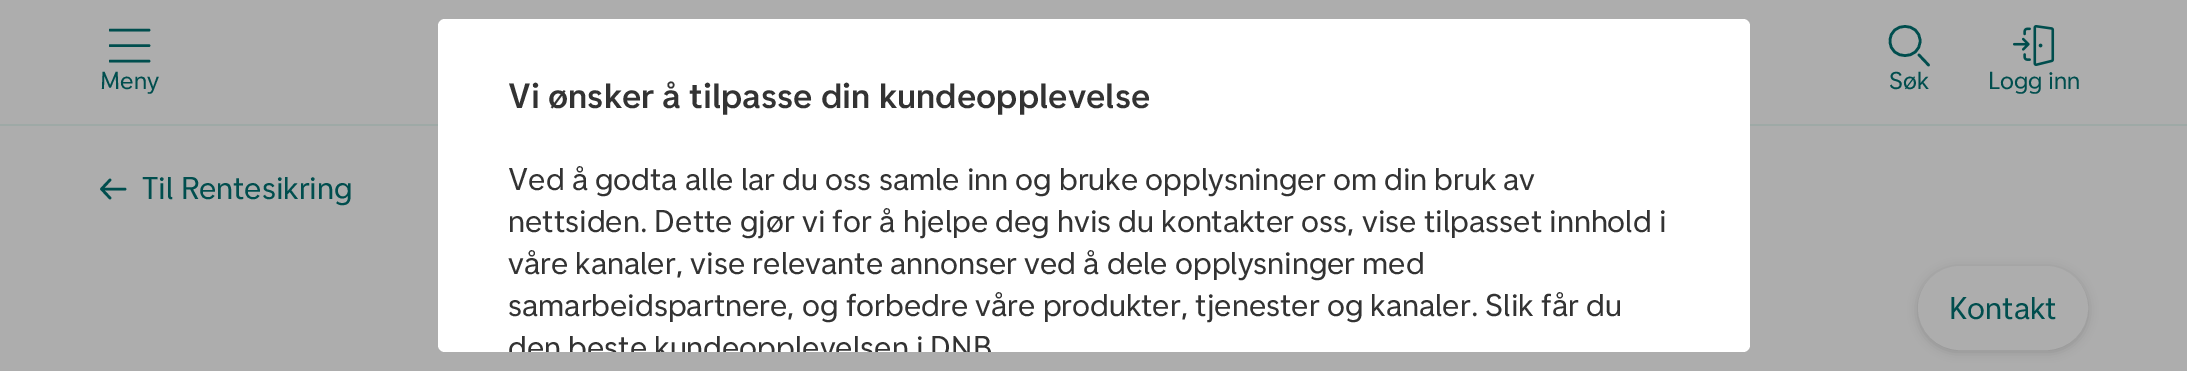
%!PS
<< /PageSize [2187 371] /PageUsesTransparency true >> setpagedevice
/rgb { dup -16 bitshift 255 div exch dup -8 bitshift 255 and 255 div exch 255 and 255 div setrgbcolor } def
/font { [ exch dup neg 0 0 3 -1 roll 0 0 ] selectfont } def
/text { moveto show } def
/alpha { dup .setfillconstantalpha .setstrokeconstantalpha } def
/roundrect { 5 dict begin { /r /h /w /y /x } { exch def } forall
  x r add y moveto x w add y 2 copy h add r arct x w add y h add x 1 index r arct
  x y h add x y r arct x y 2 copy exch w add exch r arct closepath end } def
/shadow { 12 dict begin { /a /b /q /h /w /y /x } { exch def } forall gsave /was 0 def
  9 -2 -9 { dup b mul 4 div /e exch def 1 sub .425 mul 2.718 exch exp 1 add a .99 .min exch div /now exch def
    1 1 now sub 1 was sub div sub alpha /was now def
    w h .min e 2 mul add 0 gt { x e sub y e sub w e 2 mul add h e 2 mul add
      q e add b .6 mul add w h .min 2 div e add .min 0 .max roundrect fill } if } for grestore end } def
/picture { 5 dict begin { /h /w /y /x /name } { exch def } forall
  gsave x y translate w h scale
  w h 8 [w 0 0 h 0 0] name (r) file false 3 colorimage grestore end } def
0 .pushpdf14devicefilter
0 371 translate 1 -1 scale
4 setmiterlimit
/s1 { /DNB-Regular 24.5 font 16#004E4E rgb } def
/s2 { /DNB-Regular 31.5 font 16#004E4E rgb } def
/s3 { /DNB-Medium 35 font 16#333333 rgb } def
/s4 { /DNB-Regular 31.5 font 16#333333 rgb } def
16#ADADAD rgb
0 0 2187 371 rectfill
16#9EA9A6 rgb
0 124 2187 2 rectfill
gsave
109 25 42 42 rectclip
16#004E4E rgb
2.6 setlinewidth
1 setlinecap
110 61 moveto 149 61 lineto 110 45.5 moveto 149 45.5 lineto 110 30 moveto 149 30 lineto stroke
grestore
s1
(Meny) 100 89 text
2.6 setlinewidth
1 setlinecap
1919 55 moveto 1928.5 65 lineto 1920 41 moveto 1920 60.5 1890 60.5 1890 41 curveto 1890 21.5 1920 21.5 1920 41 curveto closepath stroke
(Søk) 1889 89 text
(pic1.raw) 2013 25 42 41 picture
(Logg inn) 1988 89 text
1 setlinejoin
125 189 moveto 101.5 189 lineto 110 180 moveto 101.5 189 lineto 101.5 189 moveto 110 198 lineto stroke
s2
(Til Rentesikring) 142 199 text
16#000000 rgb
1918 268 170 84 42 5 0.16 shadow
16#ADADAD rgb
1920 268 166 80 40 roundrect gsave fill grestore
4 setlinewidth
0 setlinecap
0 setlinejoin
stroke
s2
(Kontakt) 1949 319 text
16#FFFFFF rgb
438 19 1312 333 7 roundrect fill
s3
(Vi ønsker å tilpasse din kundeopplevelse) 508 108 text
s4
(Ved å godta alle lar du oss samle inn og bruke opplysninger om din bruk av) 508 190 text
(nettsiden. Dette gjør vi for å hjelpe deg hvis du kontakter oss, vise tilpasset innhold i) 508 232 text
(våre kanaler, vise relevante annonser ved å dele opplysninger med) 508 274 text
(samarbeidspartnere, og forbedre våre produkter, tjenester og kanaler. Slik får du) 508 316 text
gsave
438 19 1312 333 rectclip
(den beste kundeopplevelsen i DNB) 508 358 text
grestore
.poppdf14devicefilter showpage
